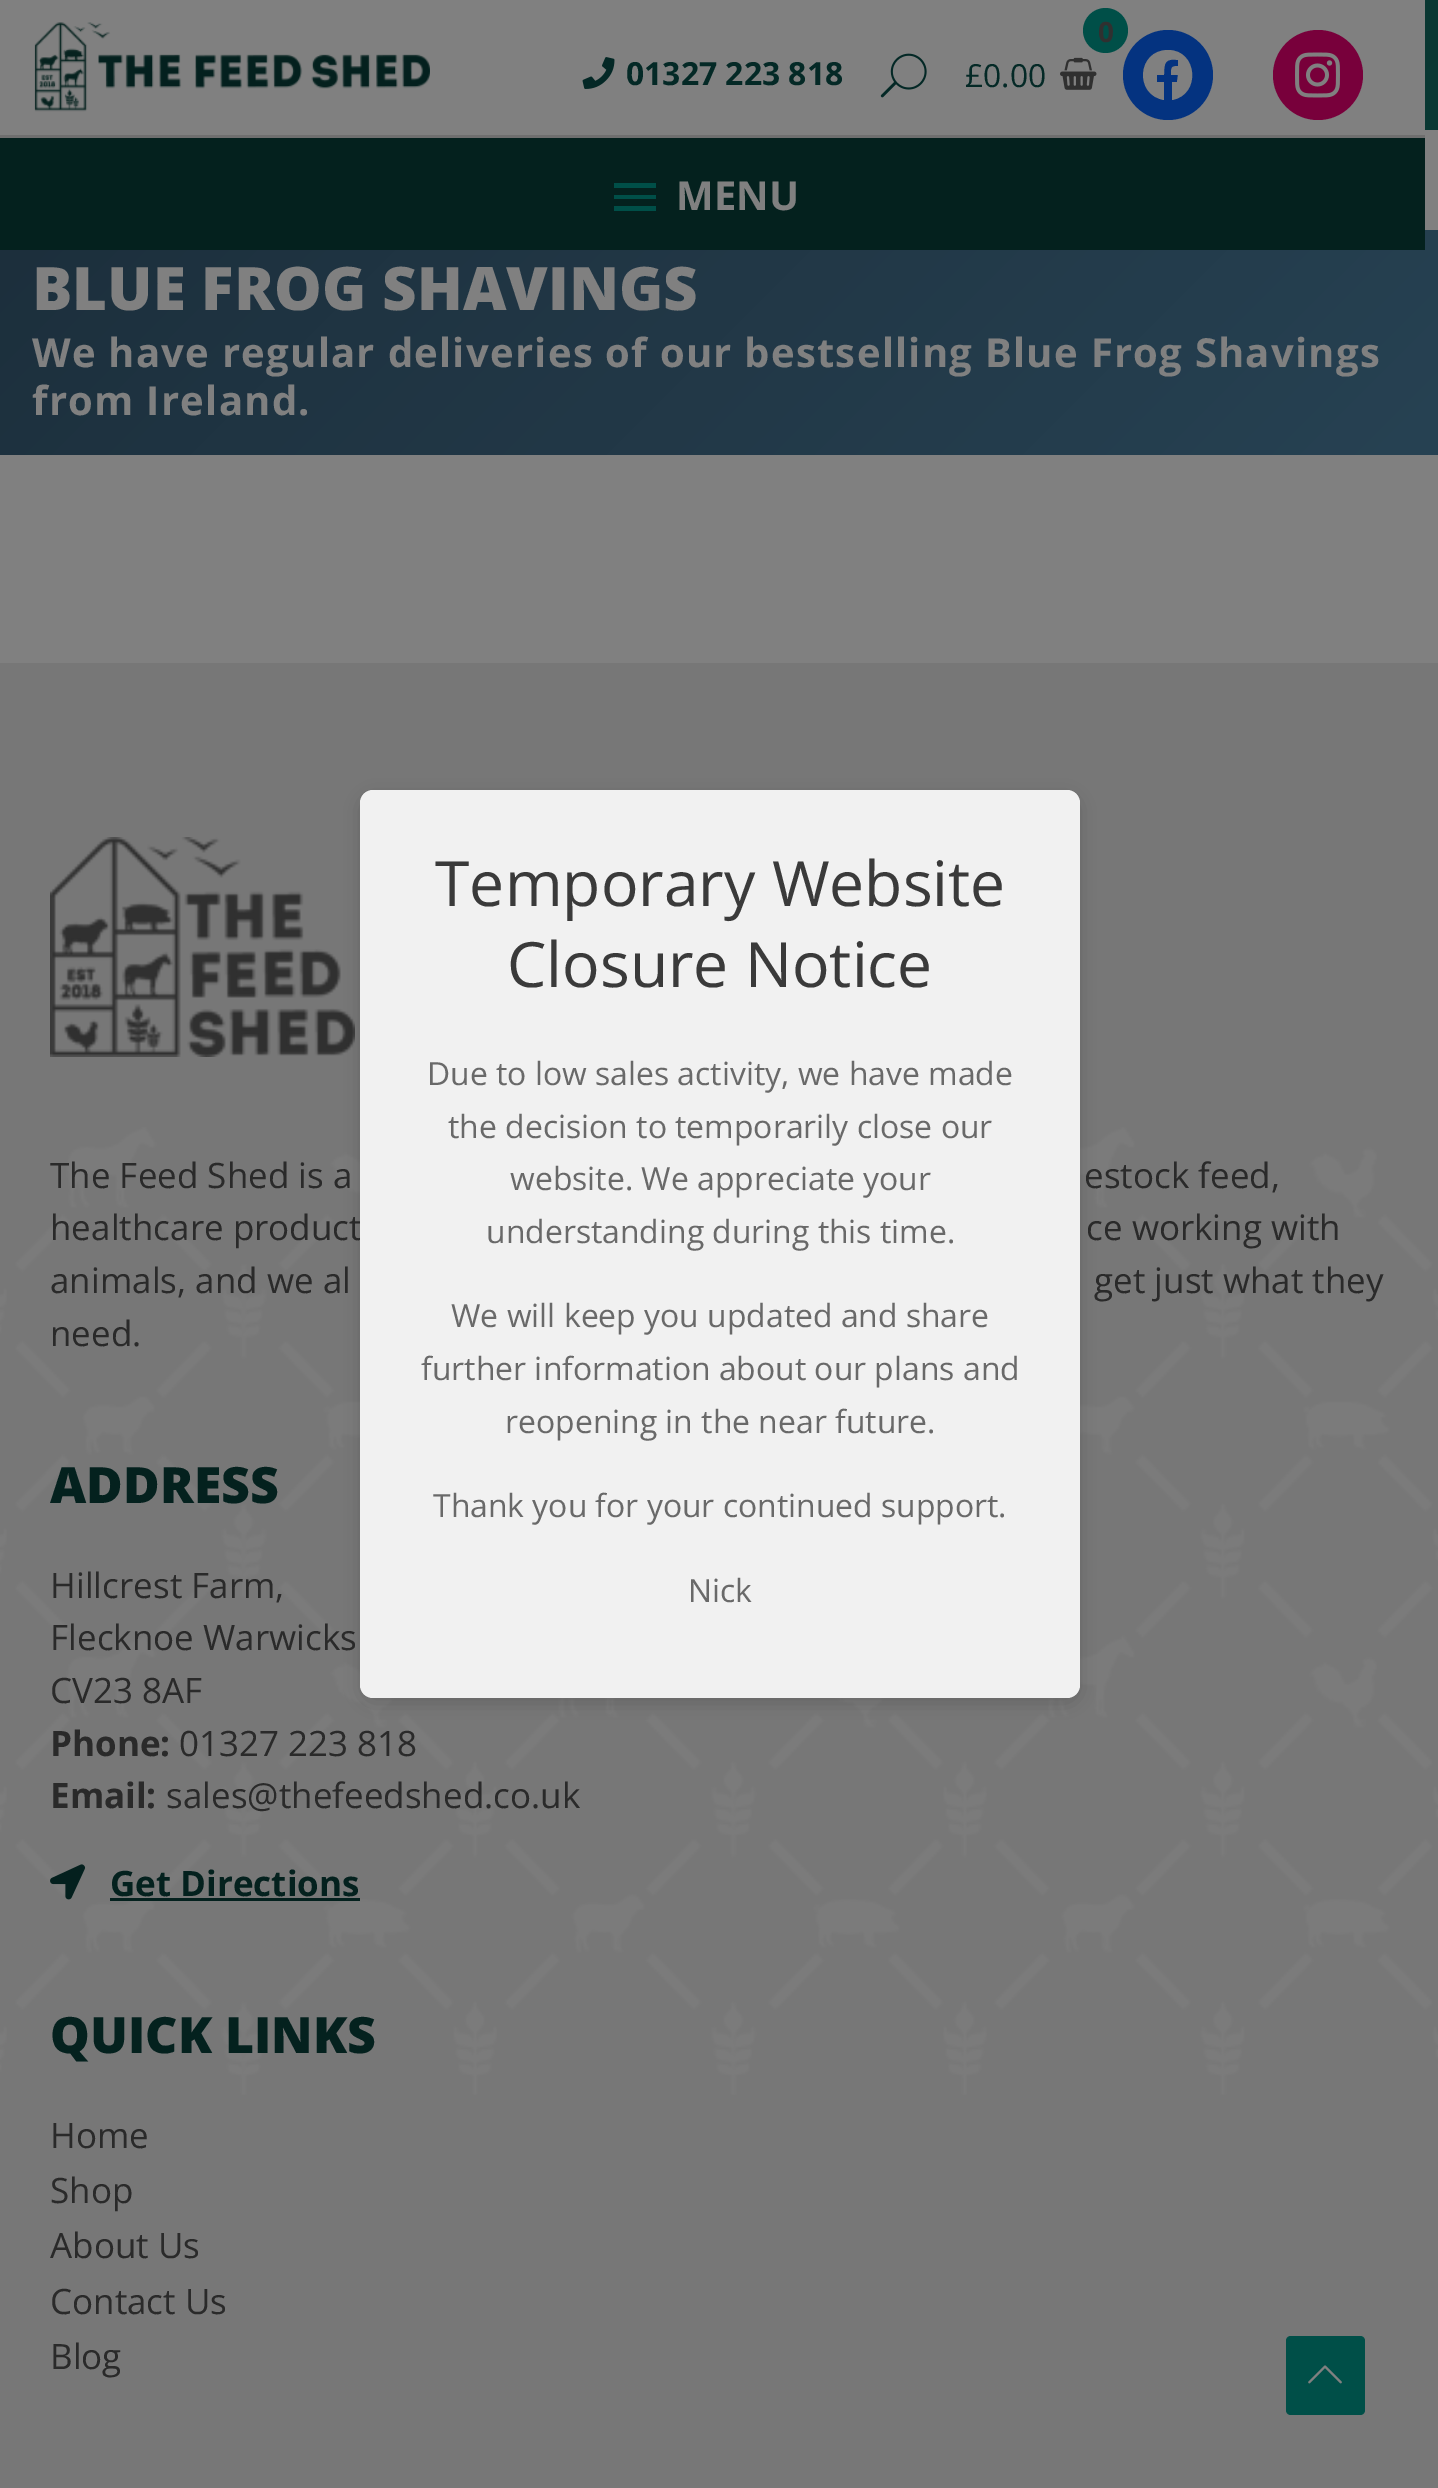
%!PS
<< /PageSize [1438 2488] /PageUsesTransparency true >> setpagedevice
/rgb { dup -16 bitshift 255 div exch dup -8 bitshift 255 and 255 div exch 255 and 255 div setrgbcolor } def
/font { [ exch dup neg 0 0 3 -1 roll 0 0 ] selectfont } def
/text { moveto show } def
/alpha { dup .setfillconstantalpha .setstrokeconstantalpha } def
/circle { newpath 0 360 arc closepath } def
/roundrect { 5 dict begin { /r /h /w /y /x } { exch def } forall
  x r add y moveto x w add y 2 copy h add r arct x w add y h add x 1 index r arct
  x y h add x y r arct x y 2 copy exch w add exch r arct closepath end } def
/shadow { 12 dict begin { /a /b /q /h /w /y /x } { exch def } forall gsave /was 0 def
  9 -2 -9 { dup b mul 4 div /e exch def 1 sub .425 mul 2.718 exch exp 1 add a .99 .min exch div /now exch def
    1 1 now sub 1 was sub div sub alpha /was now def
    w h .min e 2 mul add 0 gt { x e sub y e sub w e 2 mul add h e 2 mul add
      q e add b .6 mul add w h .min 2 div e add .min 0 .max roundrect fill } if } for grestore end } def
/picture { 5 dict begin { /h /w /y /x /name } { exch def } forall
  gsave x y translate w h scale
  w h 8 [w 0 0 h 0 0] name (r) file false 3 colorimage grestore end } def
0 .pushpdf14devicefilter
0 2488 translate 1 -1 scale
4 setmiterlimit
/s1 { /OpenSans-Bold 31.9 font 16#042926 rgb } def
/s2 { /OpenSans-Regular 31.9 font 16#042926 rgb } def
/s3 { /OpenSans-Bold 40 font 16#808080 rgb } def
/s4 { /OpenSans-ExtraBold 60 font 16#808080 rgb } def
/s5 { /OpenSans-Regular 35 font 16#2A2A2A rgb } def
/s6 { /OpenSans-ExtraBold 50 font 16#04211E rgb } def
/s7 { /OpenSans-Bold 35 font 16#2A2A2A rgb } def
/s8 { /OpenSans-Bold 35 font 16#04211E rgb } def
/s9 { /OpenSans-Regular 62.5 font 16#3A3A3A rgb } def
/s10 { /OpenSans-Regular 31.9 font 16#696969 rgb } def
16#808080 rgb
0 0 1438 2488 rectfill
16#6F6F6F rgb
0 135 1425 3 rectfill
(pic1.raw) 34 22 396 90 picture
(pic2.raw) 582 57 33 32 picture
s1
(01327 223 818) 626 85 text
(pic3.raw) 880 53 47 45 picture
16#043380 rgb
1168 75 45 circle fill
16#004F48 rgb
1105.5 30.5 22.5 circle fill
/OpenSans-Bold 28 font
16#303030 rgb
1098 42 moveto -1 0 (0) ashow
(pic4.raw) 1060 57 37 33 picture
s2
(£0.00) 965 87 text
16#808080 rgb
1168 50 moveto 1137 50 1134 95 1164 100 curveto 1164 82 lineto 1157 82 lineto 1157 75 lineto 1164 75 lineto 1164 63 1165 58 1178 60 curveto 1178 66 lineto 1171 66 1171 68 1171 75 curveto 1178 75 lineto 1177 82 lineto 1172 82 lineto 1172 100 lineto 1201 95 1198 50 1168 50 curveto closepath fill
16#78003B rgb
1318 75 45 circle fill
(pic5.raw) 1295 52 45 46 picture
gsave 0 230 moveto 1438 230 lineto 1438 455 lineto 0 455 lineto closepath clip newpath
<< /ShadingType 2 /ColorSpace /DeviceRGB /Coords [304 -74 1136 759] /Extend [true true] /Function << /FunctionType 2 /Domain [0 1] /C0 [0.11 0.184 0.235] /C1 [0.153 0.259 0.325] /N 1 >> >> shfill grestore
16#04211E rgb
0 138 1425 112 rectfill
16#004F48 rgb
614 183 moveto 656 183 lineto 656 188 lineto 614 188 lineto closepath 614 199 moveto 614 195 lineto 656 195 lineto 656 199 lineto closepath 614 211 moveto 614 206 lineto 656 206 lineto 656 211 lineto closepath fill
s3
(MENU) 676 210 text
gsave 1425 0 moveto 1438 0 lineto 1438 130 lineto 1425 130 lineto closepath clip newpath
<< /ShadingType 2 /ColorSpace /DeviceRGB /Coords [304 -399 1136 434] /Extend [true true] /Function << /FunctionType 2 /Domain [0 1] /C0 [0.024 0.129 0.118] /C1 [0.035 0.224 0.204] /N 1 >> >> shfill grestore
s4
(BLUE FROG SHAVINGS) 32 310 text
/OpenSans-Bold 40 font
32 367 moveto 1.25 0 (We have regular deliveries of our bestselling Blue Frog Shavings) ashow
32 415 moveto 1.25 0 (from Ireland.) ashow
16#777777 rgb
0 663 1438 1825 rectfill
(pic6.raw) 0 1127 1438 968 picture
(pic7.raw) 50 837 305 220 picture
s5
(The Feed Shed is a) 50 1188 text
(estock feed,) 1084 1188 text
(healthcare product) 50 1240 text
(ce working with) 1086 1240 text
(animals, and we al) 50 1293 text
(get just what they) 1094 1293 text
(need.) 50 1346 text
s6
(ADDRESS) 50 1503 text
s5
(Hillcrest Farm,) 50 1598 text
(Flecknoe Warwicks) 50 1650 text
(CV23 8AF) 50 1703 text
s7
(Phone:) 50 1756 text
s5
(01327 223 818) 179 1756 text
s7
(Email:) 50 1808 text
s5
(sales@thefeedshed.co.uk) 166 1808 text
(pic8.raw) 50 1864 36 36 picture
s8
(Get Directions) 110 1896 text
110 1898 250 3 rectfill
s6
(QUICK LINKS) 50 2053 text
s5
(Home) 50 2148 text
(Shop) 50 2203 text
(About Us) 50 2258 text
(Contact Us) 50 2314 text
(Blog) 50 2369 text
16#000000 rgb
360 795 720 908 13 10 0.15 shadow
16#F1F1F1 rgb
360 790 720 908 13 roundrect fill
s9
(Temporary Website) 435 906 text
(Closure Notice) 507 987 text
s10
(Due to low sales activity, we have made) 427 1085 text
(the decision to temporarily close our) 448 1138 text
(website. We appreciate your) 510 1190 text
(understanding during this time.) 486 1243 text
(We will keep you updated and share) 451 1327 text
(further information about our plans and) 421 1380 text
(reopening in the near future.) 505 1433 text
(Thank you for your continued support.) 433 1517 text
(Nick) 688 1602 text
16#004F48 rgb
1360 2415 moveto 1291 2415 lineto 1288 2415 1286 2413 1286 2410 curveto 1286 2341 lineto 1286 2338 1288 2336 1291 2336 curveto 1360 2336 lineto 1363 2336 1365 2338 1365 2341 curveto 1365 2410 lineto 1365 2413 1363 2415 1360 2415 curveto closepath fill
(pic9.raw) 1308 2365 34 19 picture
.poppdf14devicefilter showpage
